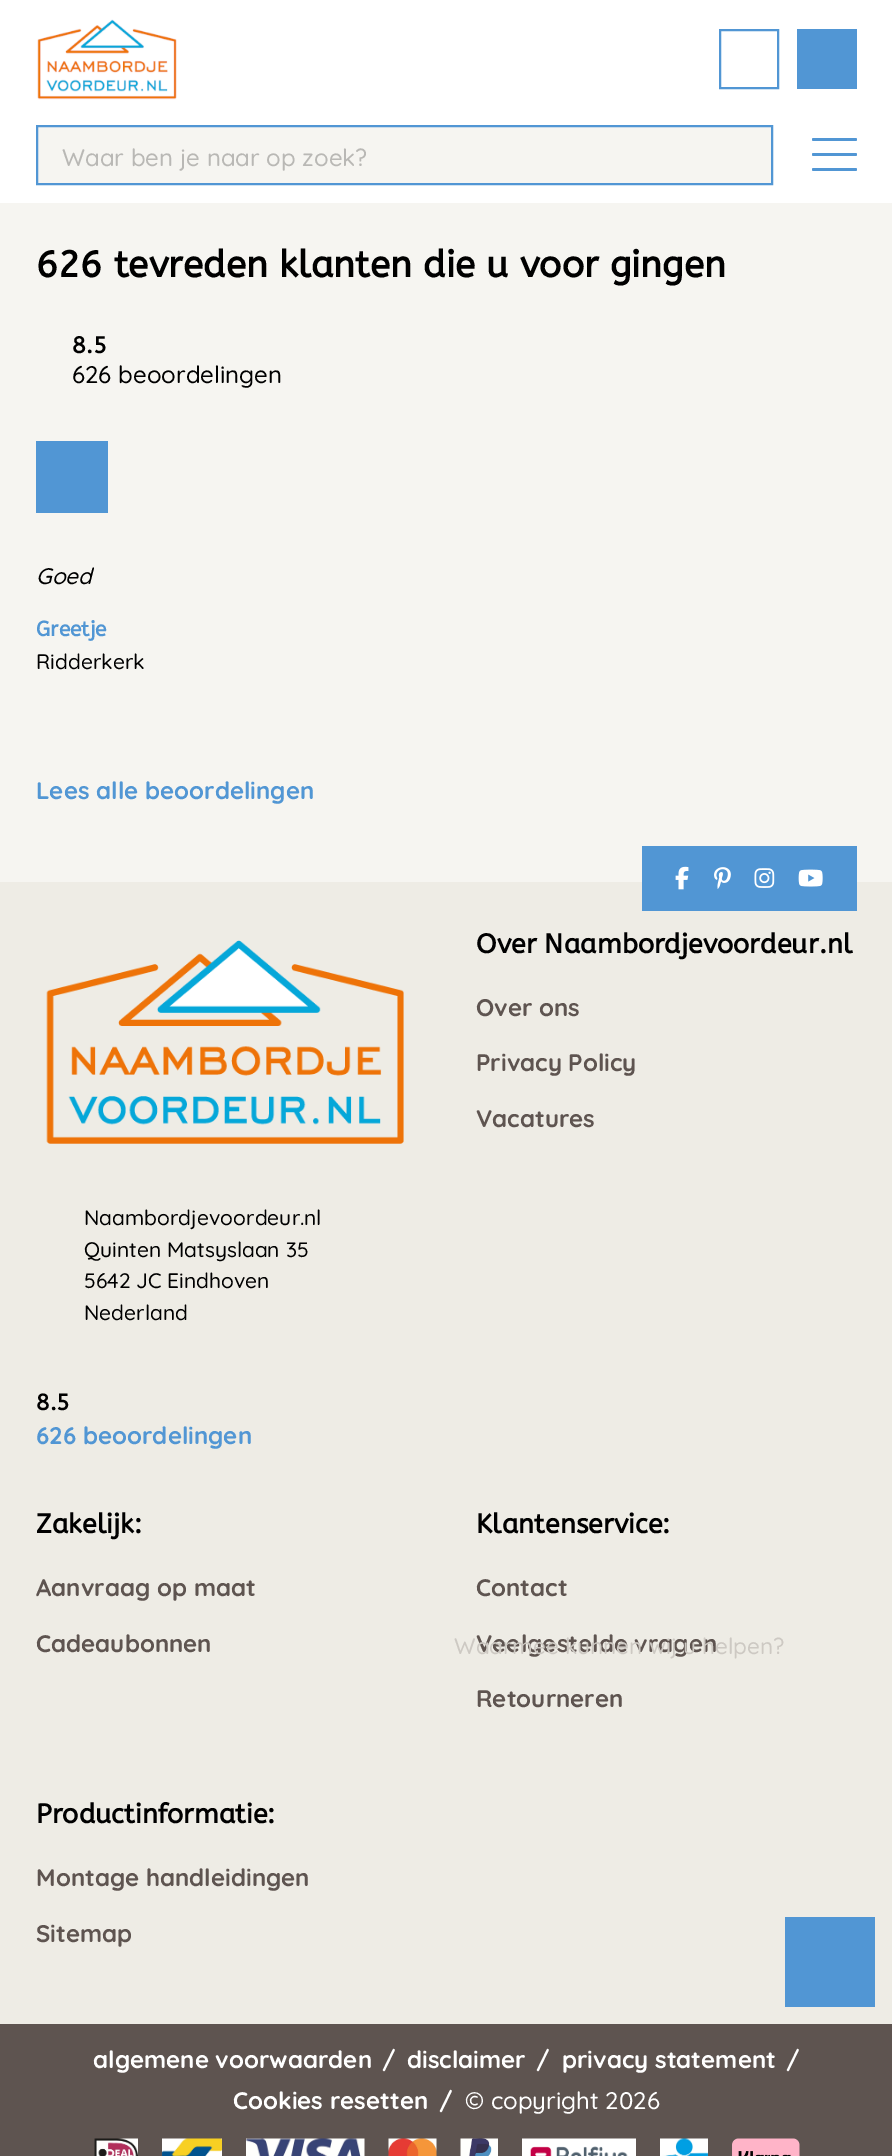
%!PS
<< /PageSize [892 2156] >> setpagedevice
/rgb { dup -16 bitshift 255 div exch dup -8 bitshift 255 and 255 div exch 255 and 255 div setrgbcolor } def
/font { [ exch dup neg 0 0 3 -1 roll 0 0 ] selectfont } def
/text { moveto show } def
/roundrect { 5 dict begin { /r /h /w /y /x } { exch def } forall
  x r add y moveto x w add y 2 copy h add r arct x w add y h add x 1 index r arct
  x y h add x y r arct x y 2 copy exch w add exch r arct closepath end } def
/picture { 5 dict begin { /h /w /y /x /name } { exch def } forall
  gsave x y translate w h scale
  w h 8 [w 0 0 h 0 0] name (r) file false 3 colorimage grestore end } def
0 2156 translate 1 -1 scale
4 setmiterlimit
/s1 { /Quicksand-Light 24 font 16#B9B8B5 rgb } def
/s2 { /ABeeZee-Bold 37 font 16#000000 rgb } def
/s3 { /ABeeZee-Bold 23 font 16#000000 rgb } def
/s4 { /Quicksand-Light 24 font 16#000000 rgb } def
/s5 { /Quicksand-LightItalic 22.5 font 16#000000 rgb } def
/s6 { /ABeeZee-Bold 21 font 16#5196D4 rgb } def
/s7 { /Quicksand-Light 21 font 16#000000 rgb } def
/s8 { /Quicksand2-Light 24 font 16#5196D4 rgb } def
/s9 { /ABeeZee-Bold 27 font 16#000000 rgb } def
/s10 { /Quicksand2-Light 24 font 16#5E5450 rgb } def
/s11 { /ABeeZee-Bold 22.5 font 16#000000 rgb } def
/s12 { /Quicksand2-Light 24 font 16#FFFFFF rgb } def
/s13 { /Quicksand-Light 24 font 16#FFFFFF rgb } def
/s14 { /Quicksand-Light 22.5 font 16#CDC9C3 rgb } def
16#EEECE5 rgb
0 0 892 2156 rectfill
16#FFFFFF rgb
0 0 892 203 rectfill
(pic1.raw) 37 19 140 81 picture
16#5196D4 rgb
2 setlinewidth
720 30 58 58 rectstroke
797 29 60 60 rectfill
16#F6F5F1 rgb
37 126 moveto 772 126 lineto 772 184 lineto 37 184 lineto closepath gsave fill grestore
16#5196D4 rgb
stroke
s1
(Waar ben je naar op zoek?) 62 166 text
16#5196D4 rgb
812 153 45 3 1.5 roundrect fill
812 138 45 3 1.5 roundrect fill
812 168 45 3 1.5 roundrect fill
16#F6F5F1 rgb
0 203 892 679 rectfill
s2
(626 tevreden klanten die u voor gingen) 36 277 text
s3
(8.5) 72 353 text
s4
(626 beoordelingen) 72 383 text
16#5196D4 rgb
36 441 72 72 rectfill
s5
(Goed) 36 584 text
s6
(Greetje) 36 636 text
s7
(Ridderkerk) 36 669 text
s8
(Lees alle beoordelingen) 36 799 text
642 846 215 65 rectfill
(pic2.raw) 675 866 14 24 picture
(pic3.raw) 714 867 17 22 picture
(pic4.raw) 754 868 21 20 picture
(pic5.raw) 798 869 25 18 picture
s9
(Over Naambordjevoordeur.nl) 476 953 text
s10
(Over ons) 476 1016 text
(Privacy Policy) 476 1071 text
(Vacatures) 476 1127 text
(pic6.raw) 46 940 358 204 picture
s7
(Naambordjevoordeur.nl) 84 1225 text
(Quinten Matsyslaan 35) 84 1257 text
(5642 JC Eindhoven) 84 1288 text
(Nederland) 84 1320 text
s11
(8.5) 36 1410 text
s8
(626 beoordelingen) 36 1444 text
s9
(Zakelijk:) 36 1533 text
s10
(Aanvraag op maat) 36 1596 text
(Cadeaubonnen) 36 1652 text
s9
(Klantenservice:) 476 1533 text
s10
(Contact) 476 1596 text
(Veelgestelde vragen) 476 1652 text
(Retourneren) 476 1707 text
s9
(Productinformatie:) 36 1823 text
s10
(Montage handleidingen) 36 1886 text
(Sitemap) 36 1942 text
0 2024 892 132 rectfill
s12
(algemene voorwaarden) 93 2068 text
(/) 382 2068 text
(disclaimer) 407 2068 text
(/) 536 2068 text
(privacy statement) 562 2068 text
(/) 786 2068 text
(Cookies resetten) 233 2109 text
(/) 439 2109 text
s13
(© copyright 2026) 465 2109 text
(pic7.raw) 94 2138 44 18 picture
(pic8.raw) 162 2138 60 18 picture
(pic9.raw) 246 2138 119 18 picture
(pic10.raw) 388 2138 49 18 picture
(pic11.raw) 460 2138 38 18 picture
(pic12.raw) 522 2138 114 18 picture
(pic13.raw) 660 2138 48 18 picture
(pic14.raw) 732 2138 68 18 picture
s14
(Waarmee kunnen wij u helpen?) 454 1654 text
16#5196D4 rgb
785 1917 90 90 rectfill
showpage
